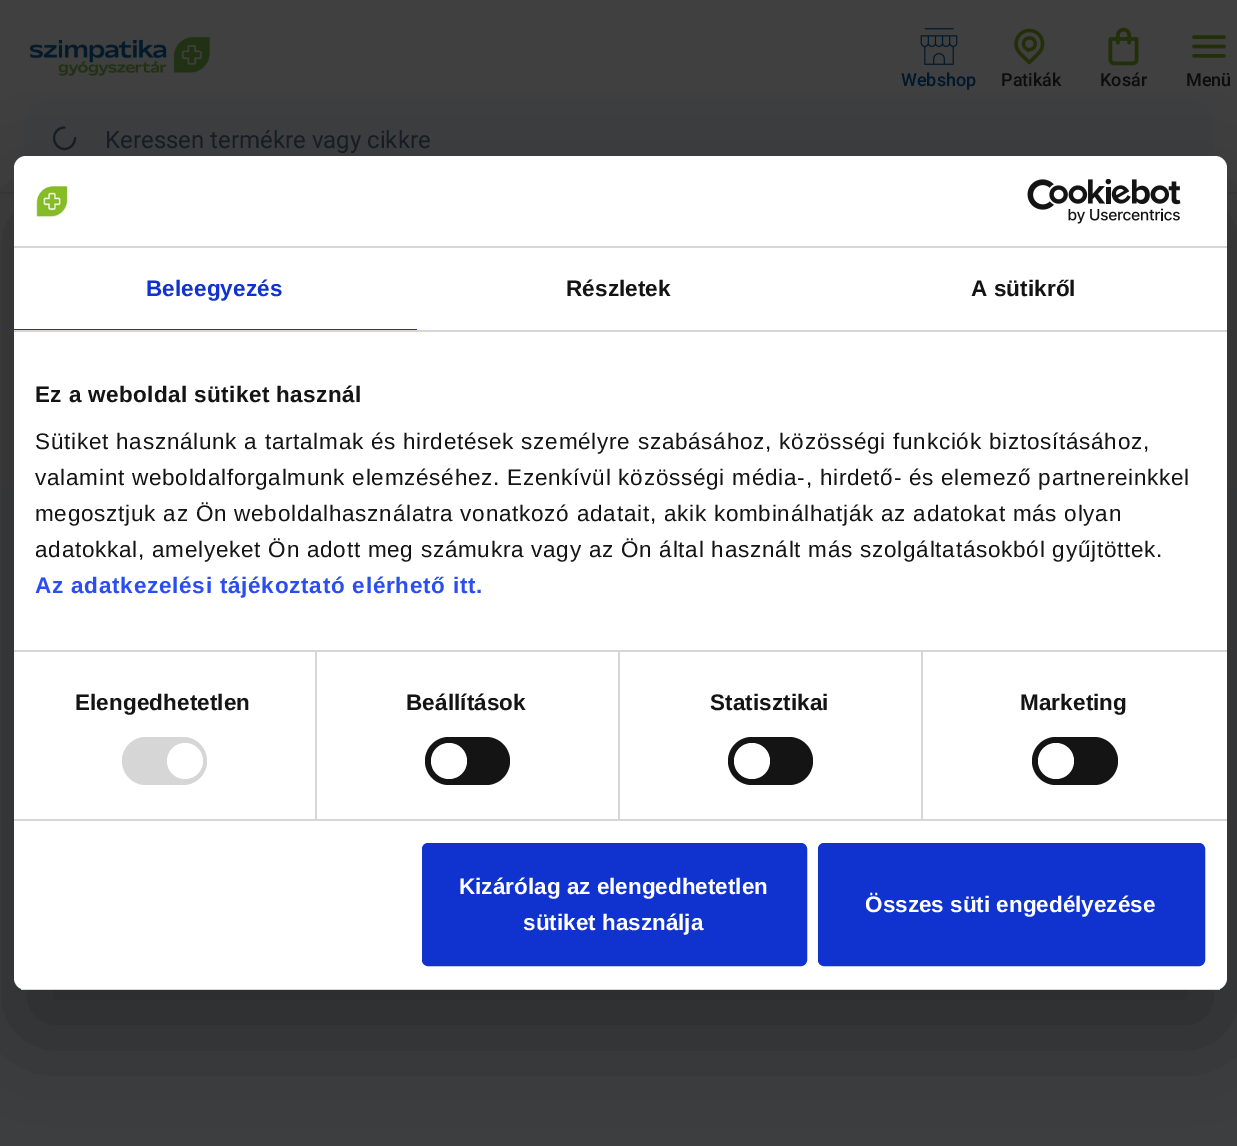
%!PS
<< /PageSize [1237 1146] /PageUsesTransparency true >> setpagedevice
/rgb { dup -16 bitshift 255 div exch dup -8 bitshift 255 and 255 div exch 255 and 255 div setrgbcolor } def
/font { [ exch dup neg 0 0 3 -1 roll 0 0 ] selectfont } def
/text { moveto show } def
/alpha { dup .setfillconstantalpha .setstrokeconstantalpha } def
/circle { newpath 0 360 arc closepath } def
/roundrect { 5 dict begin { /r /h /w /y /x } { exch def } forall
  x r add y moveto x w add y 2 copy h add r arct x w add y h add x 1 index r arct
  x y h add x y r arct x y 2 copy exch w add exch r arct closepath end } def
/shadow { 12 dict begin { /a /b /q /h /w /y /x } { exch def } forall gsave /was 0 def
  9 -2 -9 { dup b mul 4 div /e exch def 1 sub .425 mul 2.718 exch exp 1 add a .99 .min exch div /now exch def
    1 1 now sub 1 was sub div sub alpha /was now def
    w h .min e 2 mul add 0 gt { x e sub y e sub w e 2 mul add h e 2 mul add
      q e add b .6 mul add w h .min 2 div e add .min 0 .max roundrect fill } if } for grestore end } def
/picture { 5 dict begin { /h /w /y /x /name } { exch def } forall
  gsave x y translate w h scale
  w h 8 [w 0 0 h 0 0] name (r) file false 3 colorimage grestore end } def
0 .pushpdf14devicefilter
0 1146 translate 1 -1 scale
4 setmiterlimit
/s1 { /Roboto-Medium 18 font 16#00182C rgb } def
/s2 { /Roboto-Medium 18 font 16#0D0D0D rgb } def
/s3 { /Roboto-Regular 24 font 16#161D25 rgb } def
/s4 { /LiberationSans-Bold 22.5 font 16#FFFFFF rgb } def
16#404040 rgb
0 0 1237 1146 rectfill
16#3B3B3B rgb
0 192 1237 2 rectfill
(pic1.raw) 29 36 181 40 picture
(pic2.raw) 920 28 38 37 picture
s1
(Webshop) 901 86 text
(pic3.raw) 1014 28 31 37 picture
s2
(Patikák) 1001 86 text
(pic4.raw) 1108 27 31 39 picture
(Kosár) 1100 86 text
(pic5.raw) 1192 35 34 23 picture
(Menü) 1186 86 text
16#3D3E3F rgb
24 99 1190 81 24 roundrect fill
16#161D25 rgb
2 setlinewidth
1 setlinecap
1 setlinejoin
75 138 moveto 75 144 70.5 149 64.5 149 curveto 58.5 149 54 144 54 138 curveto 54 132 58.5 127.5 64.5 127.5 curveto stroke
s3
(Keressen termékre vagy cikkre) 105 148 text
16#3D3E3F rgb
0 488 1237 658 rectfill
16#000000 rgb
14 204 1213 834 12 51 0.3 shadow
16#FFFFFF rgb
14 156 1213 834 12 roundrect fill
16#D6D6D6 rgb
14 246 1213 2 rectfill
(pic6.raw) 36 186 32 32 picture
(pic7.raw) 1027 179 154 45 picture
14 330 1213 2 rectfill
16#1032CF rgb
14 329 403 1 rectfill
/LiberationSans-Bold 22.5 font
146 296 moveto 0.1 0 (Beleegyezés) ashow
16#141414 rgb
566 296 moveto 0.1 0 (Részletek) ashow
971 296 moveto 0.1 0 (A sütikről) ashow
16#D6D6D6 rgb
315 651 2 168 rectfill
618 651 2 168 rectfill
921 651 2 168 rectfill
14 650 1213 2 rectfill
16#141414 rgb
35 402 moveto 0.4 0 (Ez a weboldal sütiket használ) ashow
/LiberationSans-Regular 22.5 font
35 449 moveto 0.75 0 (Sütiket használunk a tartalmak és hirdetések személyre szabásához, közösségi funkciók biztosításához,) ashow
35 485 moveto 0.75 0 (valamint weboldalforgalmunk elemzéséhez. Ezenkívül közösségi média-, hirdető- és elemező partnereinkkel) ashow
35 521 moveto 0.75 0 (megosztjuk az Ön weboldalhasználatra vonatkozó adatait, akik kombinálhatják az adatokat más olyan) ashow
35 557 moveto 0.75 0 (adatokkal, amelyeket Ön adott meg számukra vagy az Ön által használt más szolgáltatásokból gyűjtöttek.) ashow
/LiberationSans-Bold 22.5 font
16#2A4EEF rgb
35 593 moveto 0.75 0 (Az adatkezelési tájékoztató elérhető itt.) ashow
16#D6D6D6 rgb
14 819 1213 2 rectfill
16#141414 rgb
75 710 moveto 0.1 0 (Elengedhetetlen) ashow
16#D6D6D6 rgb
122 737 85 48 24 roundrect fill
16#FFFFFF rgb
185 761 18 circle fill
16#141414 rgb
406 710 moveto 0.1 0 (Beállítások) ashow
425 737 85 48 24 roundrect fill
16#FFFFFF rgb
449 761 18 circle fill
16#141414 rgb
710 710 moveto 0.1 0 (Statisztikai) ashow
728 737 85 48 24 roundrect fill
16#FFFFFF rgb
752 761 18 circle fill
16#141414 rgb
1020 710 moveto 0.1 0 (Marketing) ashow
1032 737 86 48 24 roundrect fill
16#FFFFFF rgb
1056 761 18 circle fill
gsave
14 156 1213 834 12 roundrect clip newpath
16#D6D6D6 rgb
14 989 1213 1 rectfill
grestore
16#1032CF rgb
423.5 844.5 382 120 4.5 roundrect gsave fill grestore
3 setlinewidth
0 setlinecap
0 setlinejoin
stroke
s4
(Kizárólag az elengedhetetlen) 459 894 text
(sütiket használja) 523 930 text
16#1032CF rgb
819.5 844.5 384 120 4.5 roundrect gsave fill grestore
stroke
s4
(Összes süti engedélyezése) 865 912 text
.poppdf14devicefilter showpage
